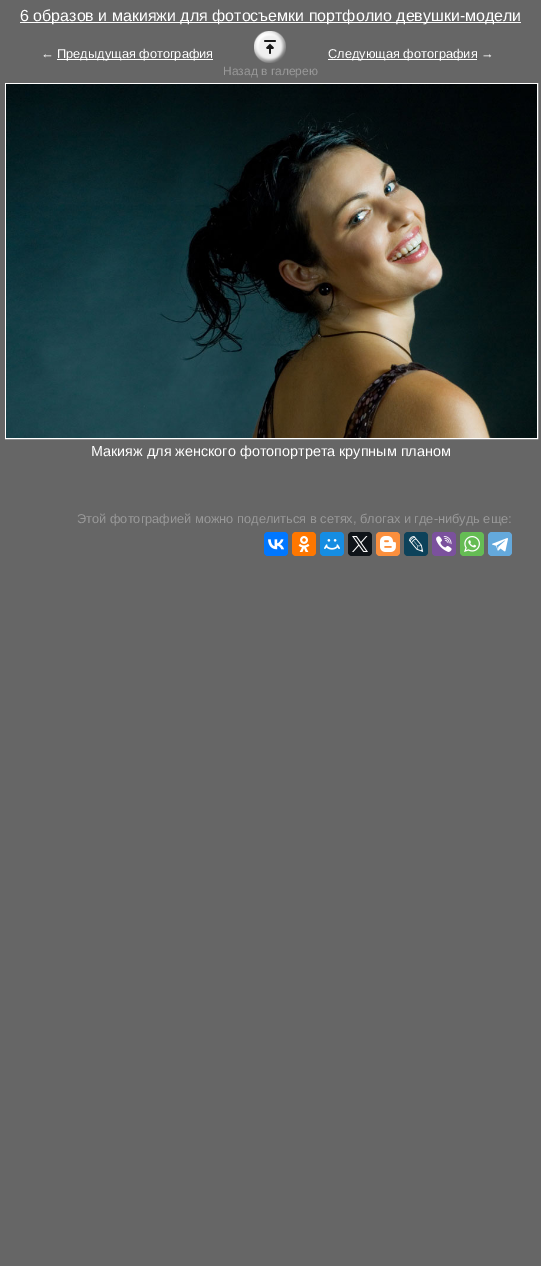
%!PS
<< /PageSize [541 1266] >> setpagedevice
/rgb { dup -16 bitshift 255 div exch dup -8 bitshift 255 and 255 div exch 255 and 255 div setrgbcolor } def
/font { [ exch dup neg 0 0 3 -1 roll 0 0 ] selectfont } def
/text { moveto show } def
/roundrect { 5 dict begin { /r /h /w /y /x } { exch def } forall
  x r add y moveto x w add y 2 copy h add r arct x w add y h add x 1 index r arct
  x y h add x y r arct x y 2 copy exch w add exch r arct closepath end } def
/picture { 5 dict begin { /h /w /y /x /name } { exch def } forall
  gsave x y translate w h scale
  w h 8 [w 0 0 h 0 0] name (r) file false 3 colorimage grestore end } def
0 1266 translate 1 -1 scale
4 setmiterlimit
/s1 { /LiberationSans-Regular 16 font 16#FFFFFF rgb } def
/s2 { /LiberationSans-Regular 12.8 font 16#FFFFFF rgb } def
/s3 { /LiberationSans-Regular 12 font 16#999999 rgb } def
/s4 { /LiberationSans-Regular 14.4 font 16#FFFFFF rgb } def
/s5 { /LiberationSans-Regular 12.8 font 16#999999 rgb } def
16#666666 rgb
0 0 541 1266 rectfill
16#FFFFFF rgb
20 22 501 1 rectfill
s1
(6 образов и макияжи для фотосъемки портфолио девушки-модели) 20 21 text
s2
(←) 41 58 text
57 59 156 1 rectfill
(Предыдущая фотография) 57 58 text
328 59 149 1 rectfill
(Следующая фотография →) 328 58 text
(pic1.raw) 254 31 32 32 picture
s3
(Назад в галерею) 223 75 text
16#FFFFFF rgb
5.5 83.5 532 355 rectstroke
(pic2.raw) 6 84 531 354 picture
s4
(Макияж для женского фотопортрета крупным планом) 91 456 text
s5
(Этой фотографией можно поделиться в сетях, блогах и где-нибудь еще:) 77 523 text
16#0077FF rgb
264 532 24 24 4 roundrect fill
(pic3.raw) 268 539 16 11 picture
16#FF7700 rgb
292 532 24 24 4 roundrect fill
(pic4.raw) 298 536 12 16 picture
16#168DE2 rgb
320 532 24 24 4 roundrect fill
(pic5.raw) 324 539 16 11 picture
16#0F1419 rgb
348 532 24 24 4 roundrect fill
(pic6.raw) 352 536 16 16 picture
16#FB8F3D rgb
376 532 24 24 4 roundrect fill
(pic7.raw) 380 536 16 16 picture
16#0D425A rgb
404 532 24 24 4 roundrect fill
(pic8.raw) 409 536 15 16 picture
16#7B519D rgb
432 532 24 24 4 roundrect fill
(pic9.raw) 436 536 16 16 picture
16#65BC54 rgb
460 532 24 24 4 roundrect fill
(pic10.raw) 464 536 16 16 picture
16#64A9DC rgb
488 532 24 24 4 roundrect fill
(pic11.raw) 492 538 16 14 picture
showpage
